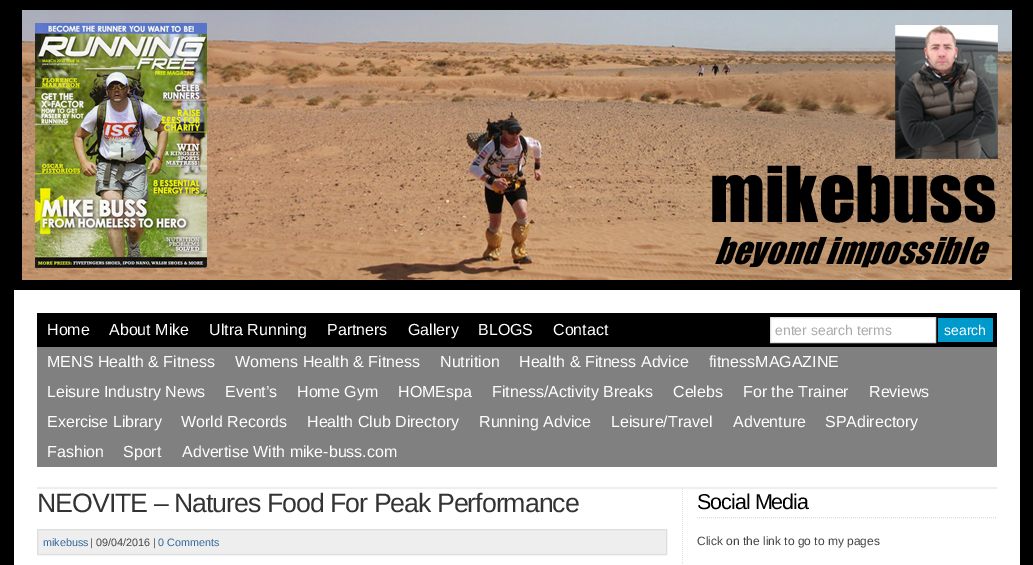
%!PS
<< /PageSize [1033 565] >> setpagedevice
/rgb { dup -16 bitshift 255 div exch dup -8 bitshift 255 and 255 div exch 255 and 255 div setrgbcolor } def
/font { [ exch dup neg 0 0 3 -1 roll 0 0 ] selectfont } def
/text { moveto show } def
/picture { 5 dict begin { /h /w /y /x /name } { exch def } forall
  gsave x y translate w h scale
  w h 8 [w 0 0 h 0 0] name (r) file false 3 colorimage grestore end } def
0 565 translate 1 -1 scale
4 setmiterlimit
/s1 { /LiberationSans-Regular 16 font 16#FFFFFF rgb } def
/s2 { /LiberationSans-Regular 14 font 16#AAAAAA rgb } def
/s3 { /LiberationSans-Regular 14 font 16#FFFFFF rgb } def
/s4 { /LiberationSans-Regular 10.75 font 16#336699 rgb } def
/s5 { /LiberationSans-Regular 10.75 font 16#444444 rgb } def
/s6 { /LiberationSans-Regular 12 font 16#444444 rgb } def
16#000000 rgb
0 0 1033 565 rectfill
(pic1.raw) 22 10 990 270 picture
16#FFFFFF rgb
14 290 1006 275 rectfill
16#000000 rgb
37 313 960 34 rectfill
s1
(Home) 47 335 text
(About Mike) 109 335 text
(Ultra Running) 209 335 text
(Partners) 327 335 text
(Gallery) 408 335 text
(BLOGS) 478 335 text
(Contact) 553 335 text
770.5 317.5 moveto 935.5 317.5 lineto 935.5 342.5 lineto 770.5 342.5 lineto closepath gsave fill grestore
16#DDDDDD rgb
stroke
s2
(enter search terms) 775 335 text
16#0099CC rgb
938 318 55 24 rectfill
s3
(search) 944 335 text
16#808080 rgb
37 347 960 120 rectfill
s1
(MENS Health & Fitness) 47 367 text
(Womens Health & Fitness) 235 367 text
(Nutrition) 440 367 text
(Health & Fitness Advice) 519 367 text
(fitnessMAGAZINE) 709 367 text
(Leisure Industry News) 47 397 text
(Event’s) 225 397 text
(Home Gym) 297 397 text
(HOMEspa) 398 397 text
(Fitness/Activity Breaks) 492 397 text
(Celebs) 673 397 text
(For the Trainer) 743 397 text
(Reviews) 869 397 text
(Exercise Library) 47 427 text
(World Records) 181 427 text
(Health Club Directory) 307 427 text
(Running Advice) 479 427 text
(Leisure/Travel) 611 427 text
(Adventure) 733 427 text
(SPAdirectory) 825 427 text
(Fashion) 47 457 text
(Sport) 123 457 text
(Advertise With mike-buss.com) 182 457 text
(pic2.raw) 682 489 1 75 picture
16#EEEEEE rgb
37 487 960 2 rectfill
/LiberationSans-Regular 26.7 font
16#333333 rgb
37 512 moveto -1 0 (NEOVITE – Natures Food For Peak Performance) ashow
16#EEEEEE rgb
37.5 529.5 moveto 666.5 529.5 lineto 666.5 554.5 lineto 37.5 554.5 lineto closepath gsave fill grestore
16#DDDDDD rgb
stroke
s4
(mikebuss) 43 546 text
s5
(| 09/04/2016 |) 90 546 text
s4
(0 Comments) 158 546 text
16#DDDDDD rgb
[1 1] 0 setdash
697 517.5 moveto 997 517.5 lineto stroke
/LiberationSans-Regular 21.5 font
16#000000 rgb
697 509 moveto -1 0 (Social Media) ashow
s6
(Click on the link to go to my pages) 697 545 text
showpage
